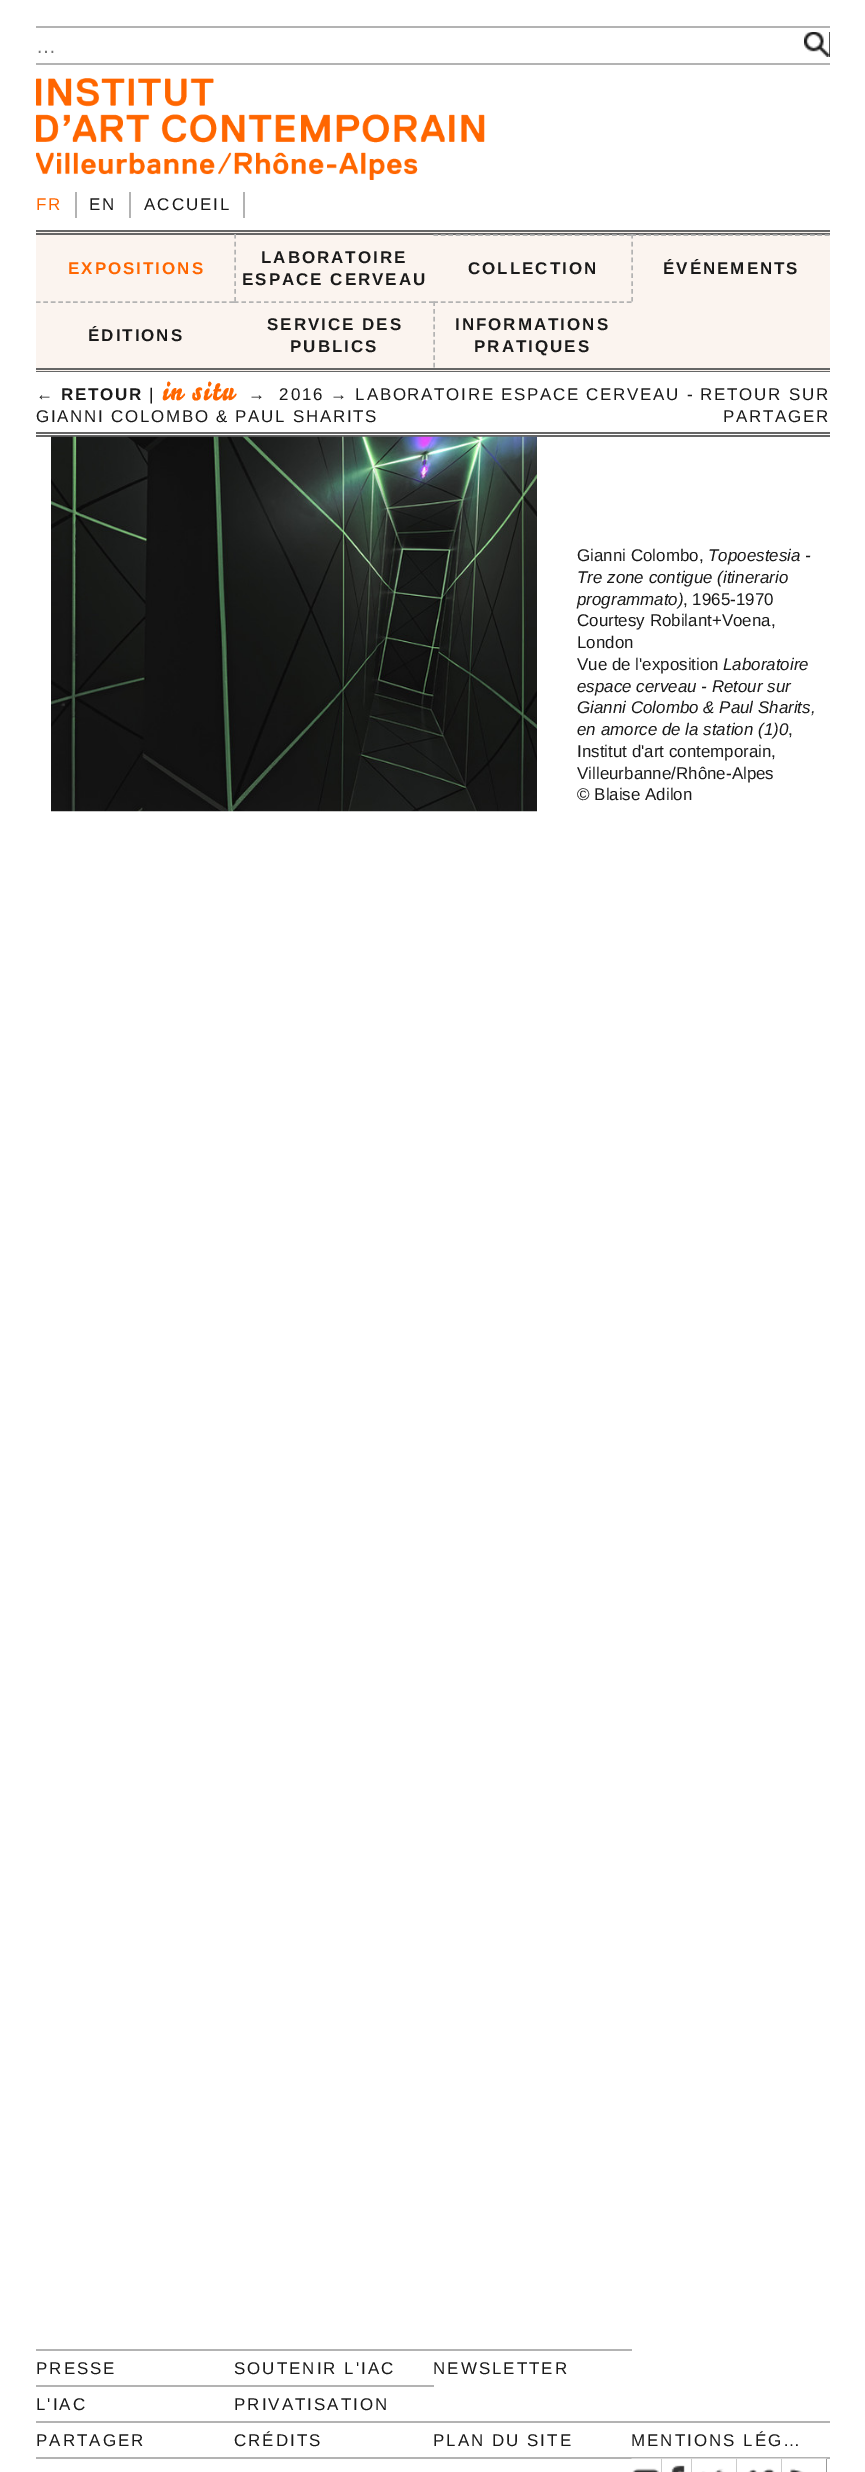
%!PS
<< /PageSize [865 2472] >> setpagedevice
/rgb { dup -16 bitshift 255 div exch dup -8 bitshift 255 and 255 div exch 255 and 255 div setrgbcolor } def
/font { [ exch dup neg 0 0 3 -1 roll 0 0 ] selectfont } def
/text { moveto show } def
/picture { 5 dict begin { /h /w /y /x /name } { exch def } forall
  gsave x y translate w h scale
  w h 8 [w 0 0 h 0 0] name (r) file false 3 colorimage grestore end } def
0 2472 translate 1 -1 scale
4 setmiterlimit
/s1 { /LiberationSans-Regular 20 font 16#757575 rgb } def
/s2 { /LiberationSans-Regular 16.95 font 16#1A1A1A rgb } def
/s3 { /LiberationSans-Italic 16.95 font 16#1A1A1A rgb } def
16#FFFFFF rgb
0 0 865 2472 rectfill
16#B3B3B3 rgb
36 26 794 2 rectfill
36 63 794 2 rectfill
s1
(…) 36 53 text
16#1A1A1A rgb
804 32 26 25 rectfill
(pic1.raw) 804 32 26 25 picture
(pic2.raw) 36 78 449 102 picture
16#B3B3B3 rgb
243 192 2 26 rectfill
/LiberationSans-Regular 16.95 font
16#FF6600 rgb
36 210 moveto 2 0 (FR) ashow
16#B3B3B3 rgb
75 192 2 26 rectfill
16#1A1A1A rgb
89 210 moveto 2 0 (EN) ashow
16#B3B3B3 rgb
129 192 2 26 rectfill
16#1A1A1A rgb
144 210 moveto 2 0 (ACCUEIL) ashow
16#FBF4EF rgb
36 232 794 139 rectfill
16#666666 rgb
36 230 794 2 rectfill
36 233 794 2 rectfill
36 368 794 2 rectfill
36 371 794 1 rectfill
/LiberationSans-Bold 16.95 font
16#FF6600 rgb
68 274 moveto 2 0 (EXPOSITIONS) ashow
16#B3B3B3 rgb
1.5 setlinewidth
[4.5 3.38] 0 setdash
235 234 moveto 235 301.5 lineto stroke
16#1A1A1A rgb
261 263 moveto 2 0 (LABORATOIRE) ashow
242 285 moveto 2 0 (ESPACE CERVEAU) ashow
16#B3B3B3 rgb
[4.5 2.94] 0 setdash
433.5 235 moveto 631.5 235 lineto stroke
16#1A1A1A rgb
468 274 moveto 2 0 (COLLECTION) ashow
16#B3B3B3 rgb
631.5 235 moveto 829.5 235 lineto stroke
[4.5 3.38] 0 setdash
632 234 moveto 632 301.5 lineto stroke
16#1A1A1A rgb
663 274 moveto 2 0 (ÉVÉNEMENTS) ashow
16#B3B3B3 rgb
[4.5 2.94] 0 setdash
36 302 moveto 234 302 lineto stroke
16#1A1A1A rgb
88 341 moveto 2 0 (ÉDITIONS) ashow
16#B3B3B3 rgb
[4.5 3] 0 setdash
234 302 moveto 433.5 302 lineto stroke
16#1A1A1A rgb
267 330 moveto 2 0 (SERVICE DES) ashow
290 352 moveto 2 0 (PUBLICS) ashow
16#B3B3B3 rgb
[4.5 2.94] 0 setdash
433.5 302 moveto 631.5 302 lineto stroke
[4.5 3.18] 0 setdash
434 301.5 moveto 434 367.5 lineto stroke
16#1A1A1A rgb
455 330 moveto 2 0 (INFORMATIONS) ashow
474 352 moveto 2 0 (PRATIQUES) ashow
16#666666 rgb
36 432 794 2 rectfill
36 435 794 2 rectfill
16#1A1A1A rgb
36 400 moveto 1.7 0 (← RETOUR) ashow
/LiberationSans-Regular 16.95 font
149 400 moveto 1.7 0 (|) ashow
/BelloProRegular-Regular 26.5 font
16#FF6600 rgb
162 400 moveto 1.7 0 (in situ) ashow
/LiberationSans-Regular 16.95 font
16#1A1A1A rgb
248 400 moveto 1.7 0 (→  2016 → LABORATOIRE ESPACE CERVEAU - RETOUR SUR) ashow
36 422 moveto 1.7 0 (GIANNI COLOMBO & PAUL SHARITS) ashow
723 422 moveto 1.7 0 (PARTAGER) ashow
(pic3.raw) 51 436 486 376 picture
(Gianni Colombo,) 577 561 text
s3
(Topoestesia -) 708 561 text
(Tre zone contigue \(itinerario) 577 583 text
(programmato\)) 577 605 text
s2
(, 1965-1970) 683 605 text
(Courtesy Robilant+Voena,) 577 626 text
(London) 577 648 text
(Vue de l'exposition) 577 670 text
s3
(Laboratoire) 723 670 text
(espace cerveau - Retour sur) 577 692 text
(Gianni Colombo & Paul Sharits,) 577 713 text
(en amorce de la station \(1\)0) 577 735 text
s2
(,) 788 735 text
(Institut d'art contemporain,) 577 757 text
(Villeurbanne/Rhône-Alpes) 577 779 text
(© Blaise Adilon) 577 800 text
16#B3B3B3 rgb
36 2349 596 2 rectfill
16#1A1A1A rgb
36 2374 moveto 2 0 (PRESSE) ashow
234 2374 moveto 2 0 (SOUTENIR L'IAC) ashow
433 2374 moveto 2 0 (NEWSLETTER) ashow
16#B3B3B3 rgb
36 2385 398 2 rectfill
16#1A1A1A rgb
36 2410 moveto 2 0 (L'IAC) ashow
234 2410 moveto 2 0 (PRIVATISATION) ashow
16#B3B3B3 rgb
36 2421 794 2 rectfill
36 2457 794 2 rectfill
16#1A1A1A rgb
36 2446 moveto 2 0 (PARTAGER) ashow
234 2446 moveto 2 0 (CRÉDITS) ashow
433 2446 moveto 2 0 (PLAN DU SITE) ashow
631 2446 moveto 2 0 (MENTIONS LÉG…) ashow
16#333333 rgb
632 2459 30 13 rectfill
(pic4.raw) 631 2458 31 14 picture
671 2459 21 13 rectfill
(pic5.raw) 661 2458 31 14 picture
701 2459 36 13 rectfill
(pic6.raw) 691 2458 46 14 picture
747 2459 35 13 rectfill
(pic7.raw) 736 2458 46 14 picture
790 2459 37 13 rectfill
(pic8.raw) 781 2458 46 14 picture
showpage
